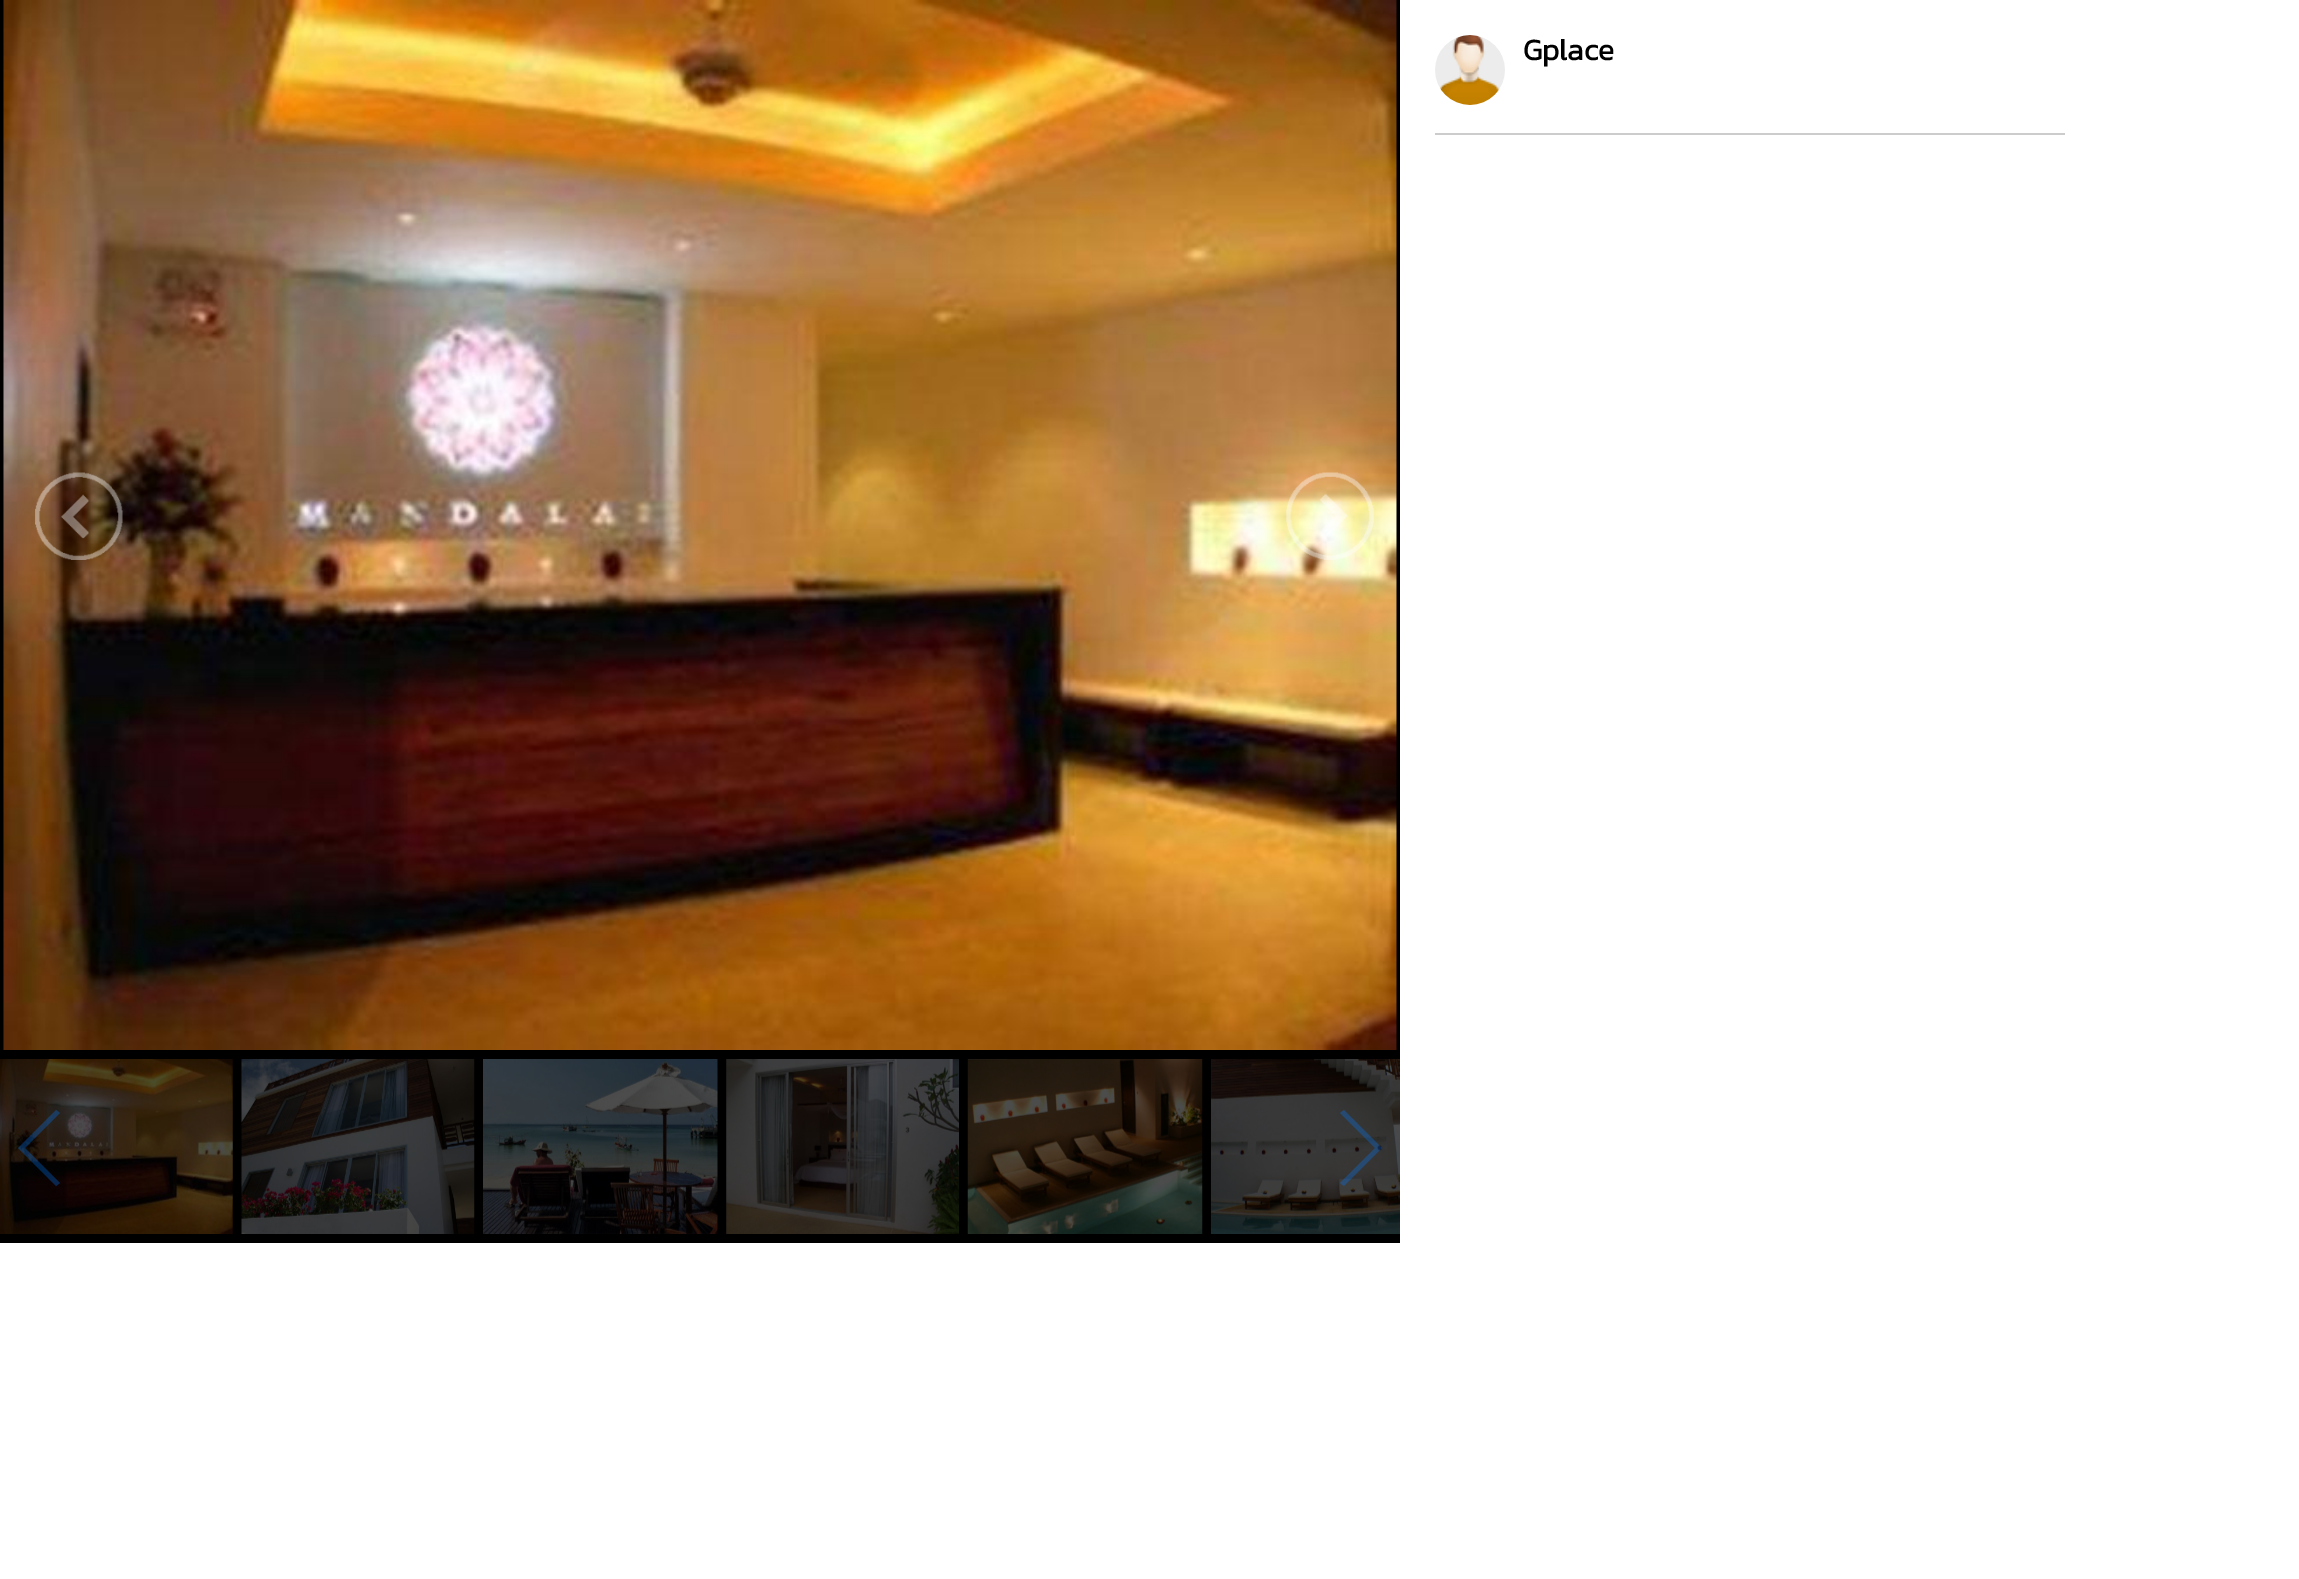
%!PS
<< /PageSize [2299 1579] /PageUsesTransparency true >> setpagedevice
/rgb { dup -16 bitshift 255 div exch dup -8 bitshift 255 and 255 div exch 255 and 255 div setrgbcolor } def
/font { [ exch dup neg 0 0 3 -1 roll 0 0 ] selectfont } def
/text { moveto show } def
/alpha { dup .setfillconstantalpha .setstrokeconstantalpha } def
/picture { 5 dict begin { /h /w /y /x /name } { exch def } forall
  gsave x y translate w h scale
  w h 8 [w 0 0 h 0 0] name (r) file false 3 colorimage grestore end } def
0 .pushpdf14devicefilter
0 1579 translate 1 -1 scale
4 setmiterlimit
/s1 { /Kanit-Bold 30 font 16#000000 rgb } def
16#FFFFFF rgb
0 0 2299 1579 rectfill
16#000000 rgb
0 0 1400 1243 rectfill
(pic1.raw) 3 0 1394 1050 picture
(pic2.raw) 35 472 88 88 picture
(pic3.raw) 1286 472 88 88 picture
(pic4.raw) 0 1059 233 175 picture
(pic5.raw) 241 1059 234 175 picture
(pic6.raw) 483 1059 235 175 picture
(pic7.raw) 726 1059 233 175 picture
(pic8.raw) 967 1059 236 175 picture
(pic9.raw) 1211 1059 189 175 picture
0.3 alpha
16#007AFF rgb
18 1148 moveto 56 1110 lineto 60 1113 lineto 25 1148 lineto 60 1183 lineto 56 1186 lineto closepath fill
1382 1148 moveto 1344 1186 lineto 1340 1183 lineto 1375 1148 lineto 1340 1113 lineto 1344 1110 lineto closepath fill
1 alpha
(pic10.raw) 1435 35 70 70 picture
s1
(Gplace) 1523 60 text
16#CCCCCC rgb
1435 133 630 2 rectfill
.poppdf14devicefilter showpage
